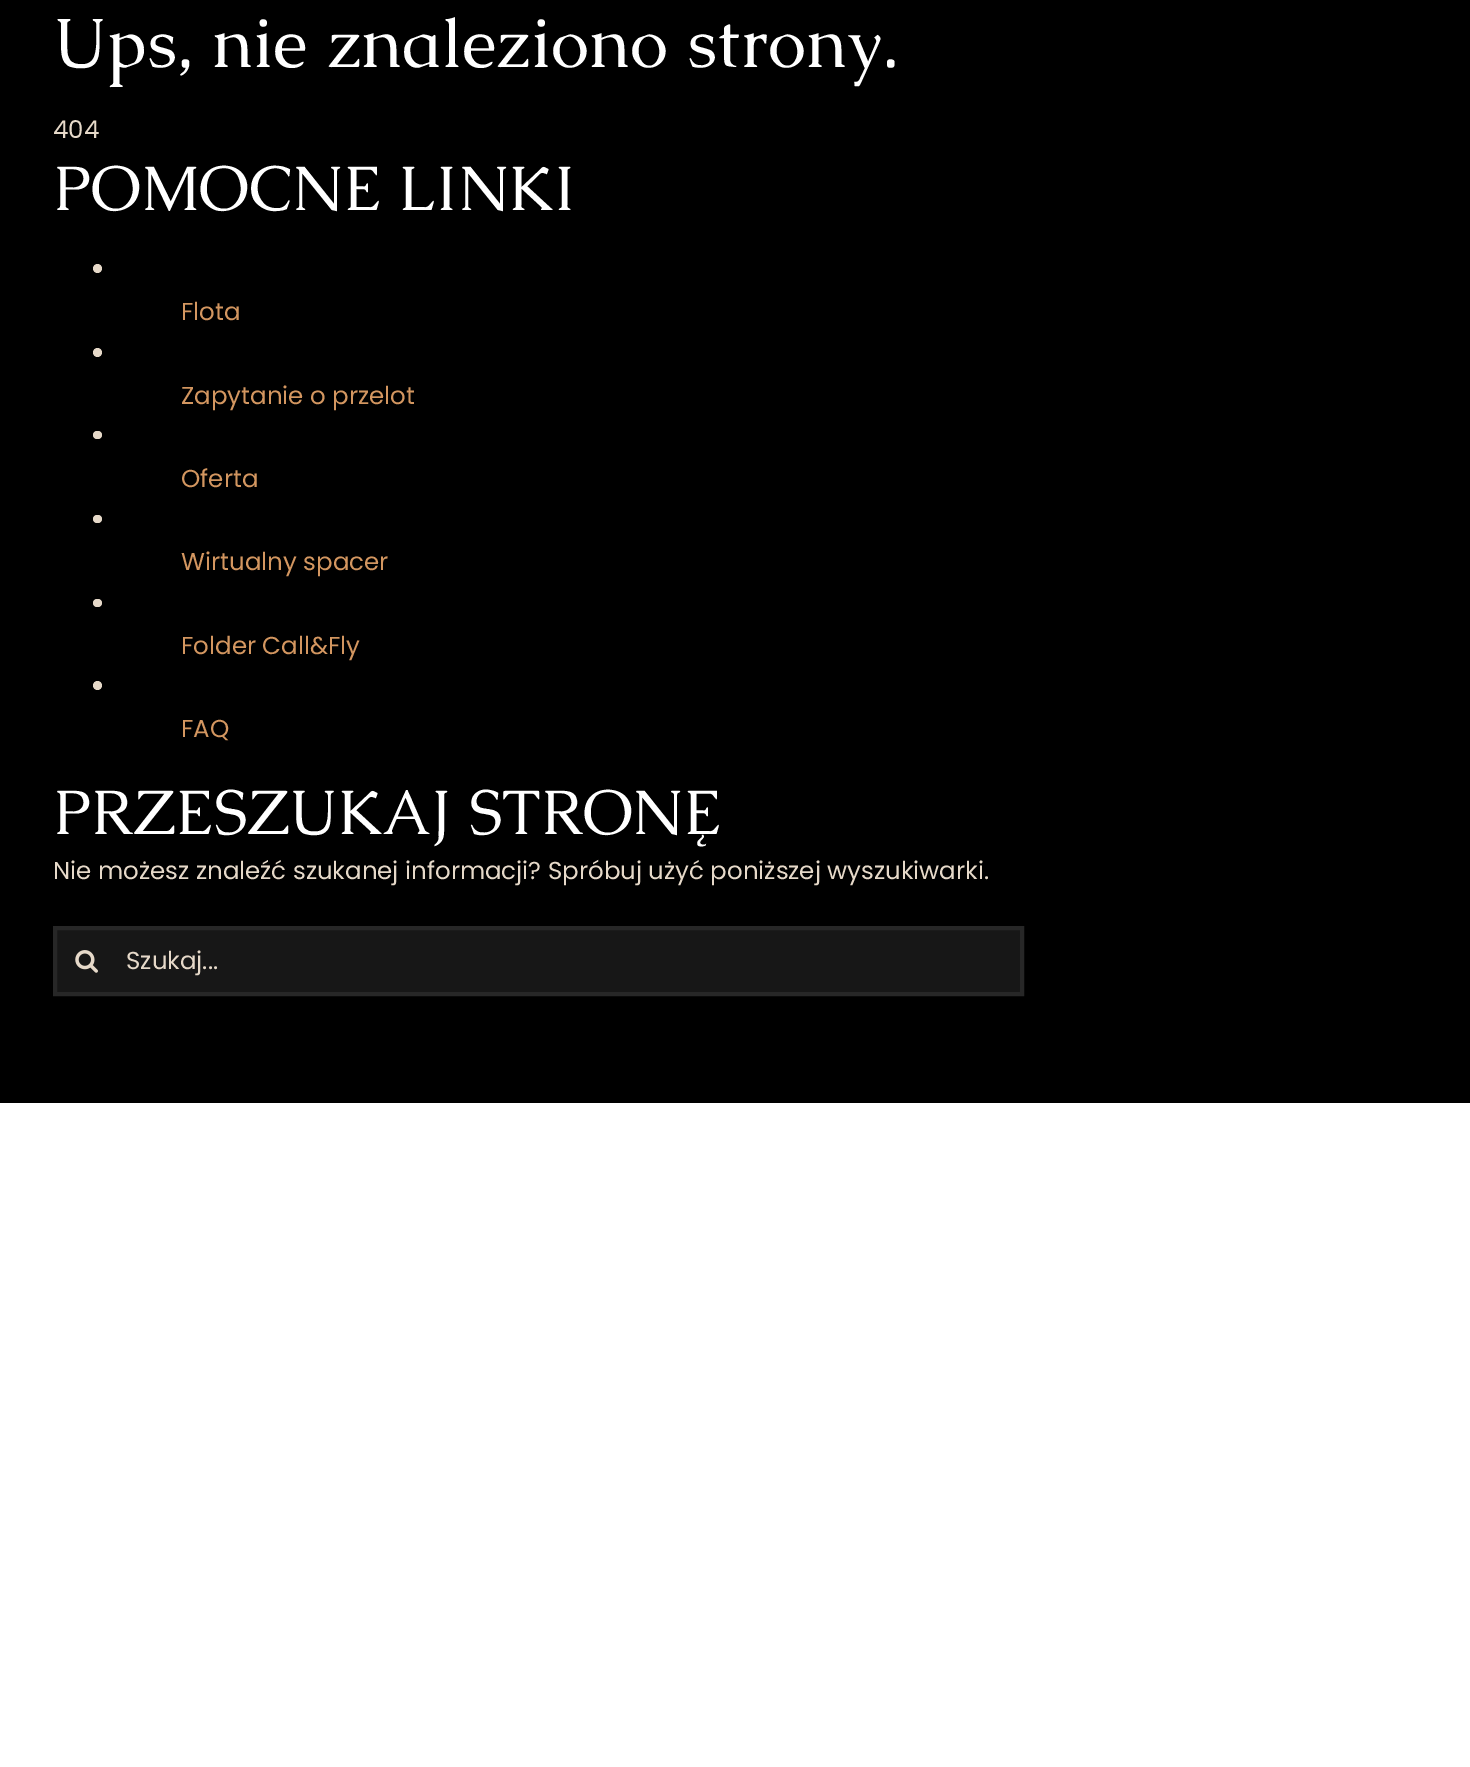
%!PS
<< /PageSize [1470 1767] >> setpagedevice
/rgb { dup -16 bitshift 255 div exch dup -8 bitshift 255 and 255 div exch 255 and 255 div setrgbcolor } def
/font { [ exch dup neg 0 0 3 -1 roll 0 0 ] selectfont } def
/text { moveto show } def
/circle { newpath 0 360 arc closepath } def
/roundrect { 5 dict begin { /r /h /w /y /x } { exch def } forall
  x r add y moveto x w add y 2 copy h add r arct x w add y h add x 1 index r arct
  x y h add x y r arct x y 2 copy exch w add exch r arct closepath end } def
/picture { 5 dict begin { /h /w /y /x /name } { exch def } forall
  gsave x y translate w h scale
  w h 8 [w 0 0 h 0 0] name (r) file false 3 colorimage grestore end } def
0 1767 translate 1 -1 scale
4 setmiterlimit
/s1 { /Caudex-Regular 70 font 16#FFFFFF rgb } def
/s2 { /Poppins-Regular 24.5 font 16#E6D9C9 rgb } def
/s3 { /Caudex-Regular 63 font 16#FFFFFF rgb } def
/s4 { /Poppins-Regular 24.5 font 16#D39660 rgb } def
16#FFFFFF rgb
0 0 1470 1767 rectfill
16#000000 rgb
0 0 1470 1103 rectfill
s1
(Ups, nie znaleziono strony.) 53 67 text
s2
(404) 53 138 text
s3
(POMOCNE LINKI) 53 210 text
16#E6D9C9 rgb
97.5 268.5 4.5 circle fill
s4
(Flota) 181 320 text
16#E6D9C9 rgb
97.5 352.5 4.5 circle fill
s4
(Zapytanie o przelot) 181 404 text
16#E6D9C9 rgb
93 431 9 8 4 roundrect fill
s4
(Oferta) 181 487 text
16#E6D9C9 rgb
93 515 9 8 4 roundrect fill
s4
(Wirtualny spacer) 181 570 text
16#E6D9C9 rgb
93 599 9 8 4 roundrect fill
s4
(Folder Call&Fly) 181 654 text
16#E6D9C9 rgb
97.5 685.5 4.5 circle fill
s4
(FAQ) 181 737 text
s3
(PRZESZUKAJ STRONĘ) 53 834 text
s2
(Nie możesz znaleźć szukanej informacji? Spróbuj użyć poniższej wyszukiwarki.) 53 879 text
16#171717 rgb
55 928 moveto 1022 928 lineto 1022 994 lineto 55 994 lineto closepath gsave fill grestore
16#272727 rgb
4 setlinewidth
stroke
(pic1.raw) 75 950 23 23 picture
s2
(Szukaj...) 126 969 text
showpage
